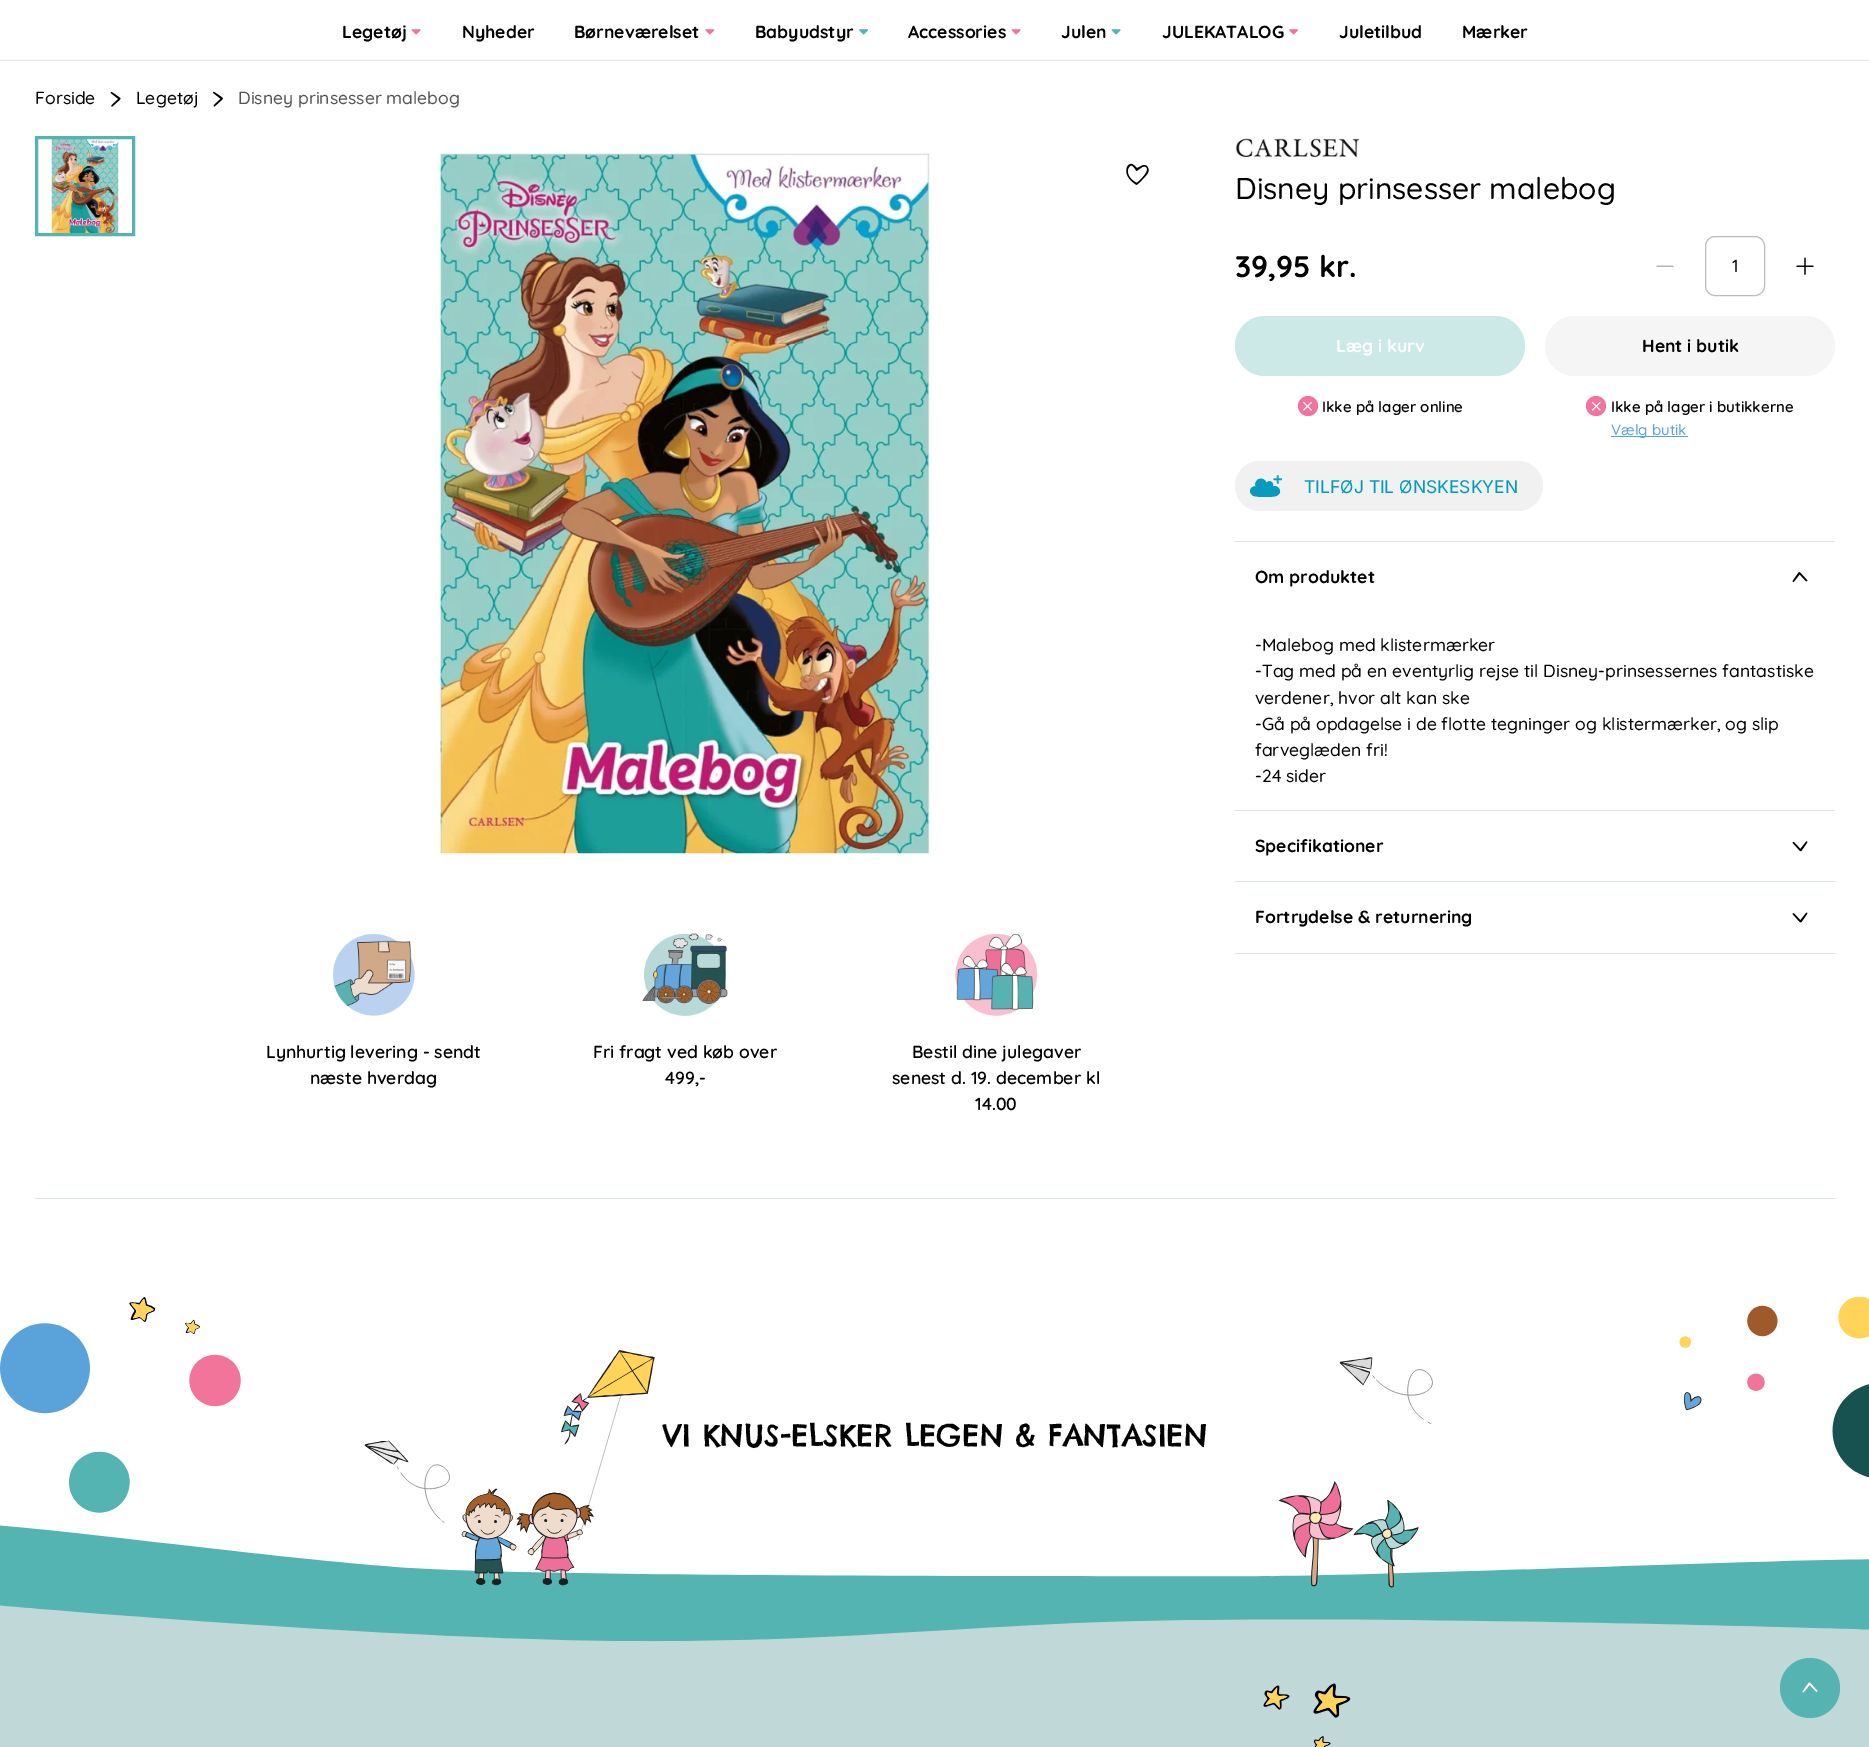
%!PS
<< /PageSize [1869 1747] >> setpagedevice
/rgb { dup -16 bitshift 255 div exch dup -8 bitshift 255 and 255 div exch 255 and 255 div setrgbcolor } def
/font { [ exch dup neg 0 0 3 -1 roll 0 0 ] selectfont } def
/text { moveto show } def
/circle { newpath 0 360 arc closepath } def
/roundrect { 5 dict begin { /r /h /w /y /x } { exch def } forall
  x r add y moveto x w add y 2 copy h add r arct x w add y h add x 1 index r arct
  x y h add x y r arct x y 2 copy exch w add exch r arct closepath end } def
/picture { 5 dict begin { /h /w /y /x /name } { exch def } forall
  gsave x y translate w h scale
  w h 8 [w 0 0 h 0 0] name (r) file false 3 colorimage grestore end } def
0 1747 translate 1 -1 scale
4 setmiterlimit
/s1 { /Quicksand-Bold 17.5 font 16#000000 rgb } def
/s2 { /Quicksand-Medium 17.5 font 16#000000 rgb } def
/s3 { /Quicksand-Medium 17.5 font 16#545454 rgb } def
/s4 { /Quicksand-Medium 30 font 16#000000 rgb } def
/s5 { /Quicksand-Bold 30 font 16#000000 rgb } def
/s6 { /Quicksand-Bold 17.5 font 16#FFFFFF rgb } def
/s7 { /Quicksand-SemiBold 15 font 16#000000 rgb } def
/s8 { /Quicksand-Medium 15 font 16#58A2DA rgb } def
/s9 { /Inter-Regular 17.5 font 16#009BBF rgb } def
/s10 { /Quicksand-SemiBold 17.5 font 16#000000 rgb } def
/s11 { /ChelseaMarket-Regular 30 font 16#000000 rgb } def
16#FFFFFF rgb
0 0 1869 1747 rectfill
16#DCE5E5 rgb
0 60 1869 1 rectfill
s1
(Legetøj) 342 38 text
(pic1.raw) 411 29 10 6 picture
(Nyheder) 462 38 text
(Børneværelset) 574 38 text
(pic2.raw) 705 29 10 6 picture
(Babyudstyr) 755 38 text
(pic3.raw) 859 29 9 6 picture
(Accessories) 908 38 text
(pic1.raw) 1011 29 10 6 picture
(Julen) 1061 38 text
(pic4.raw) 1111 29 10 6 picture
(JULEKATALOG) 1162 38 text
(pic5.raw) 1289 29 9 6 picture
(Juletilbud) 1339 38 text
(Mærker) 1462 38 text
s2
(Forside) 35 104 text
(pic6.raw) 110 91 11 16 picture
(Legetøj) 136 104 text
(pic7.raw) 213 91 10 16 picture
s3
(Disney prinsesser malebog) 238 104 text
16#DCE5E5 rgb
35 1198 1800 1 rectfill
(pic8.raw) 51 139 68 94 picture
16#55B4B1 rgb
3 setlinewidth
36.5 137.5 97 97 rectstroke
(pic9.raw) 435 149 497 706 picture
(pic10.raw) 1126 163 23 22 picture
(pic11.raw) 1235 138 125 20 picture
s4
(Disney prinsesser malebog) 1235 199 text
s5
(39,95 kr.) 1235 277 text
(pic12.raw) 1656 265 18 2 picture
16#B6BEBE rgb
1 setlinewidth
1705.5 236.5 59 59 9.5 roundrect stroke
s2
(1) 1732 272 text
(pic13.raw) 1796 257 18 18 picture
16#CCE9E8 rgb
1235 316 290 60 30 roundrect fill
s6
(Læg i kurv) 1336 352 text
16#F2739B rgb
1308 406 10 circle fill
(pic14.raw) 1303 401 9 10 picture
s7
(Ikke på lager online) 1322 412 text
16#F5F5F5 rgb
1545 316 290 60 30 roundrect fill
s1
(Hent i butik) 1642 352 text
16#F2739B rgb
1596 406 10 circle fill
(pic15.raw) 1591 401 10 10 picture
s7
(Ikke på lager i butikkerne) 1611 412 text
16#58A2DA rgb
1611 436 77 1 rectfill
s8
(Vælg butik) 1611 435 text
16#F1F1F1 rgb
1235 461 308 50 25 roundrect fill
(pic16.raw) 1250 475 32 22 picture
s9
(TILFØJ TIL ØNSKESKYEN) 1304 493 text
16#DCE5E5 rgb
1235 541 600 1 rectfill
1235 810 600 1 rectfill
s1
(Om produktet) 1255 583 text
(pic17.raw) 1792 572 16 11 picture
s2
(-Malebog med klistermærker) 1255 651 text
(-Tag med på en eventyrlig rejse til Disney-prinsessernes fantastiske) 1255 677 text
(verdener, hvor alt kan ske) 1255 704 text
(-Gå på opdagelse i de flotte tegninger og klistermærker, og slip) 1255 730 text
(farveglæden fri!) 1255 756 text
(-24 sider) 1255 782 text
16#DCE5E5 rgb
1235 881 600 1 rectfill
s1
(Specifikationer) 1255 852 text
(pic18.raw) 1792 841 16 11 picture
16#DCE5E5 rgb
1235 953 600 1 rectfill
s1
(Fortrydelse & returnering) 1255 923 text
(pic19.raw) 1792 912 16 11 picture
(pic20.raw) 333 934 82 82 picture
s10
(Lynhurtig levering - sendt) 266 1058 text
(næste hverdag) 310 1084 text
(pic21.raw) 642 933 86 83 picture
(Fri fragt ved køb over) 593 1058 text
(499,-) 665 1084 text
(pic22.raw) 955 933 83 83 picture
(Bestil dine julegaver) 912 1058 text
(senest d. 19. december kl) 892 1084 text
(14.00) 975 1110 text
16#C0D8D8 rgb
0 1605 1869 142 rectfill
(pic23.raw) 0 1296 1869 346 picture
s11
(VI KNUS-ELSKER LEGEN & FANTASIEN) 663 1446 text
(pic24.raw) 1263 1683 88 64 picture
16#55B4B1 rgb
1810 1688 30 circle fill
(pic25.raw) 1802 1682 16 11 picture
showpage
